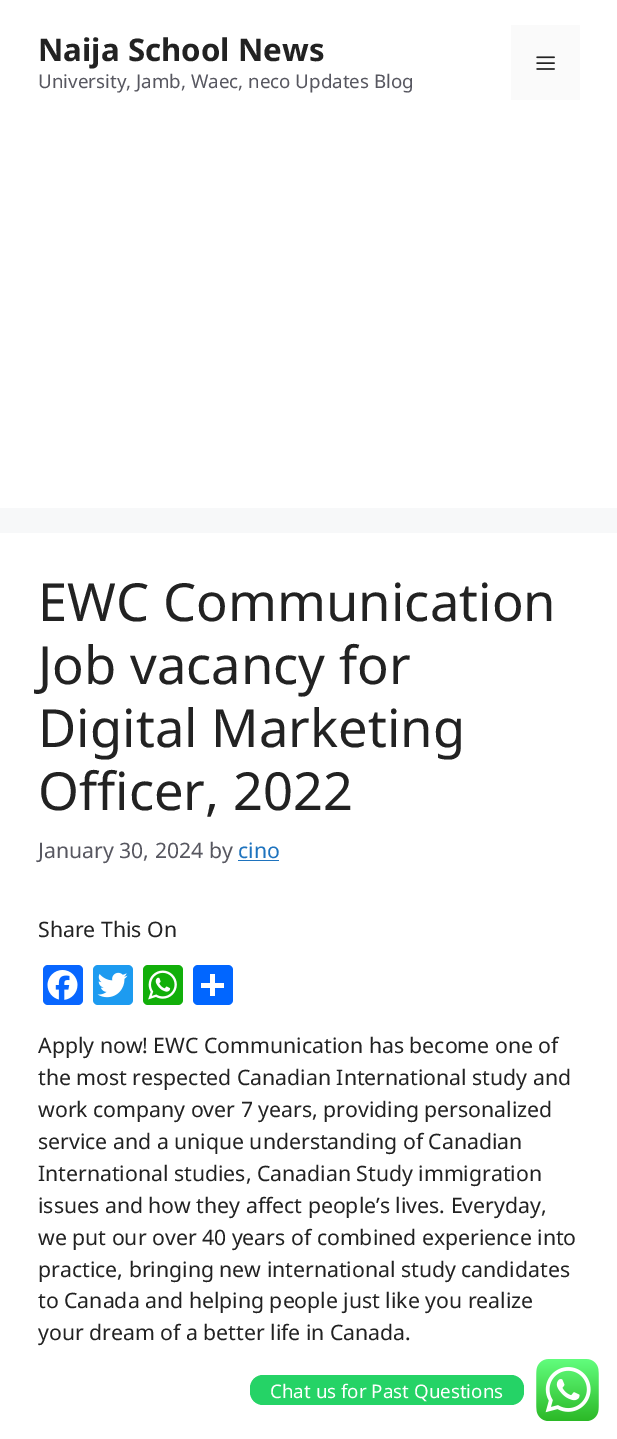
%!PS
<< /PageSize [617 1439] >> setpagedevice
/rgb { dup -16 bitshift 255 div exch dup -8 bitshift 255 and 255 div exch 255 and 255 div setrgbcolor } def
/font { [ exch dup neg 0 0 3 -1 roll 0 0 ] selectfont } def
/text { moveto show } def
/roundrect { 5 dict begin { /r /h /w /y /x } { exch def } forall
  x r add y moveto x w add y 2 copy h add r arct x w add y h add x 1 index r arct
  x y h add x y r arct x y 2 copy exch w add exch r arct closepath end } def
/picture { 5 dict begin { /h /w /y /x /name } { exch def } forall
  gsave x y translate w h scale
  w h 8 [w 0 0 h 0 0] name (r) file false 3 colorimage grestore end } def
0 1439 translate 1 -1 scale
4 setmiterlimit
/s1 { /NotoSans-Bold 31.25 font 16#222222 rgb } def
/s2 { /NotoSans-Regular 18.75 font 16#575760 rgb } def
/s3 { /NotoSans-Regular 52.5 font 16#222222 rgb } def
/s4 { /NotoSans-Regular 21.25 font 16#575760 rgb } def
/s5 { /NotoSans-Regular 21.25 font 16#1E73BE rgb } def
/s6 { /NotoSans-Regular 21.25 font 16#222222 rgb } def
/s7 { /NotoSans-Regular 18.75 font 16#FFFFFF rgb } def
16#F7F8F9 rgb
0 0 617 1439 rectfill
16#FFFFFF rgb
0 0 617 508 rectfill
s1
(Naija School News) 38 61 text
s2
(University, Jamb, Waec, neco Updates Blog) 38 88 text
16#FAFAFA rgb
511 25 69 75 rectfill
(pic1.raw) 536 56 19 14 picture
16#FFFFFF rgb
0 533 617 906 rectfill
s3
(EWC Communication) 38 621 text
(Job vacancy for) 38 684 text
(Digital Marketing) 38 747 text
(Officer, 2022) 38 810 text
s4
(January 30, 2024 by) 38 858 text
s5
(cino) 238 858 text
238 860 41 1 rectfill
s6
(Share This On) 38 937 text
16#0866FF rgb
43 965 40 40 5 roundrect fill
(pic2.raw) 47 970 31 30 picture
16#1D9BF0 rgb
93 965 40 40 5 roundrect fill
(pic3.raw) 97 972 31 26 picture
16#12AF0A rgb
143 965 40 40 5 roundrect fill
(pic4.raw) 148 970 29 30 picture
16#0166FF rgb
193 965 40 40 5 roundrect fill
16#FFFFFF rgb
210 974 5 22 rectfill
201 983 23 5 rectfill
s6
(Apply now! EWC Communication has become one of) 38 1053 text
(the most respected Canadian International study and) 38 1085 text
(work company over 7 years, providing personalized) 38 1117 text
(service and a unique understanding of Canadian) 38 1149 text
(International studies, Canadian Study immigration) 38 1181 text
(issues and how they affect people’s lives. Everyday,) 38 1213 text
(we put our over 40 years of combined experience into) 38 1245 text
(practice, bringing new international study candidates) 38 1277 text
(to Canada and helping people just like you realize) 38 1308 text
(your dream of a better life in Canada.) 38 1340 text
16#25D366 rgb
250 1375 274 30 13 roundrect fill
s7
(Chat us for Past Questions) 270 1398 text
(pic5.raw) 536 1359 63 62 picture
showpage
